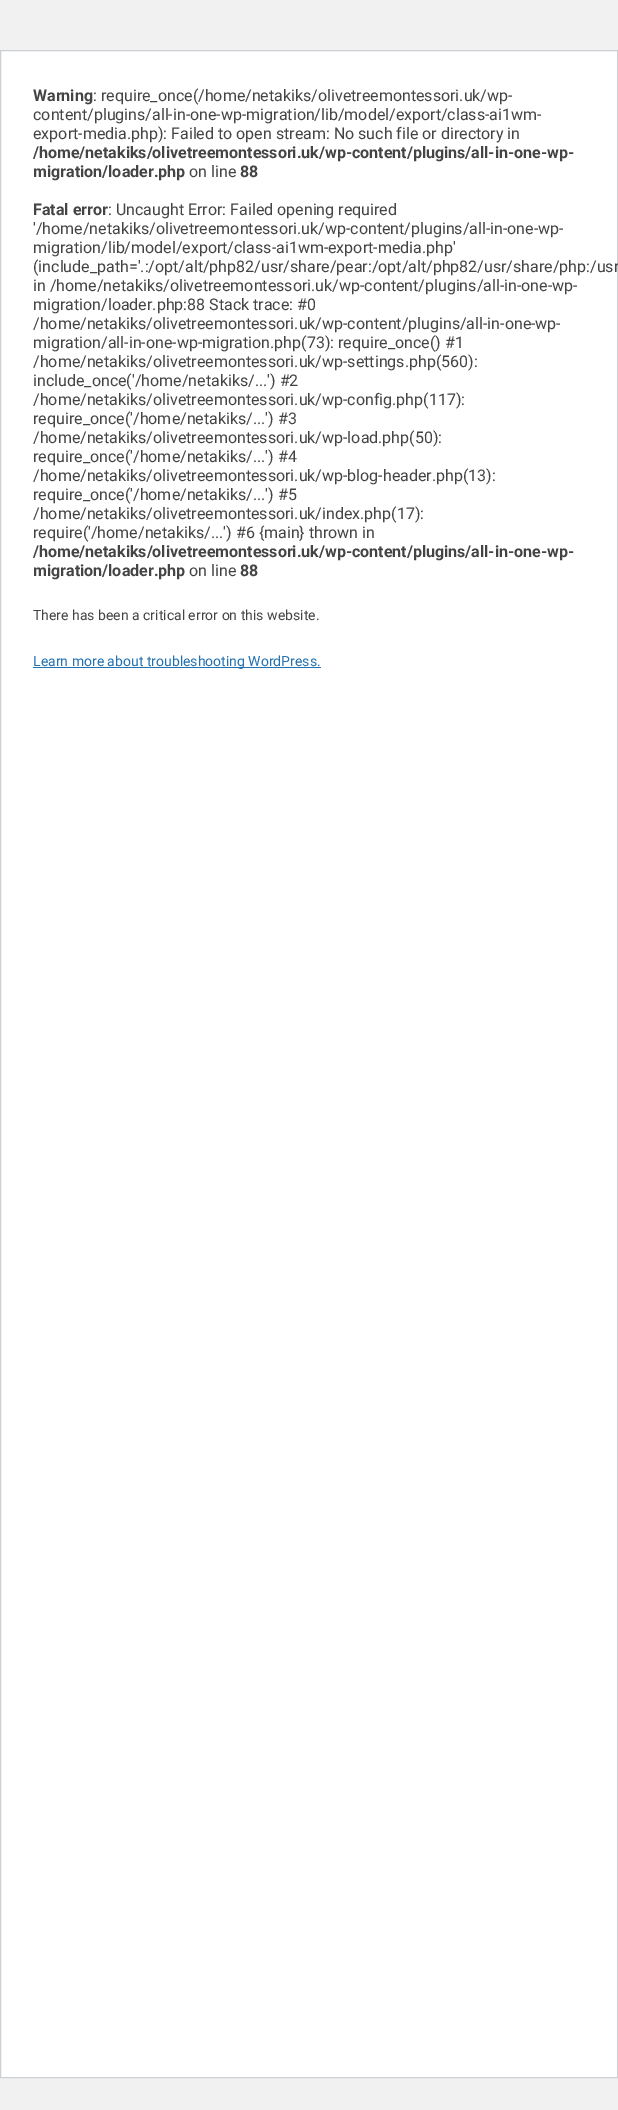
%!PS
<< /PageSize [618 2110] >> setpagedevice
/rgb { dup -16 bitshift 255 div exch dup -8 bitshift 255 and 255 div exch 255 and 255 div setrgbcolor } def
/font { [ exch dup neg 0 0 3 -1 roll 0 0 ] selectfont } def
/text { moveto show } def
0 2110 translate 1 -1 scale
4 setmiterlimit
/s1 { /Roboto-Bold 16 font 16#444444 rgb } def
/s2 { /Roboto-Regular 16 font 16#444444 rgb } def
/s3 { /Roboto-Regular 14 font 16#444444 rgb } def
/s4 { /Roboto-Regular 14 font 16#2271B1 rgb } def
16#F1F1F1 rgb
0 0 618 2110 rectfill
16#FFFFFF rgb
0.5 50.5 moveto 617.5 50.5 lineto 617.5 2077.5 lineto 0.5 2077.5 lineto closepath gsave fill grestore
16#CCD0D4 rgb
stroke
s1
(Warning) 33 101 text
s2
(: require_once\(/home/netakiks/olivetreemontessori.uk/wp-) 93 101 text
(content/plugins/all-in-one-wp-migration/lib/model/export/class-ai1wm-) 33 120 text
(export-media.php\): Failed to open stream: No such file or directory in) 33 139 text
s1
(/home/netakiks/olivetreemontessori.uk/wp-content/plugins/all-in-one-wp-) 33 158 text
(migration/loader.php) 33 177 text
s2
(on line) 189 177 text
s1
(88) 240 177 text
(Fatal error) 33 215 text
s2
(: Uncaught Error: Failed opening required) 108 215 text
('/home/netakiks/olivetreemontessori.uk/wp-content/plugins/all-in-one-wp-) 33 234 text
(migration/lib/model/export/class-ai1wm-export-media.php') 33 253 text
(\(include_path='.:/opt/alt/php82/usr/share/pear:/opt/alt/php82/usr/share/php:/usr) 33 272 text
(in /home/netakiks/olivetreemontessori.uk/wp-content/plugins/all-in-one-wp-) 33 291 text
(migration/loader.php:88 Stack trace: #0) 33 310 text
(/home/netakiks/olivetreemontessori.uk/wp-content/plugins/all-in-one-wp-) 33 329 text
(migration/all-in-one-wp-migration.php\(73\): require_once\(\) #1) 33 348 text
(/home/netakiks/olivetreemontessori.uk/wp-settings.php\(560\):) 33 367 text
(include_once\('/home/netakiks/...'\) #2) 33 386 text
(/home/netakiks/olivetreemontessori.uk/wp-config.php\(117\):) 33 405 text
(require_once\('/home/netakiks/...'\) #3) 33 424 text
(/home/netakiks/olivetreemontessori.uk/wp-load.php\(50\):) 33 443 text
(require_once\('/home/netakiks/...'\) #4) 33 462 text
(/home/netakiks/olivetreemontessori.uk/wp-blog-header.php\(13\):) 33 481 text
(require_once\('/home/netakiks/...'\) #5) 33 500 text
(/home/netakiks/olivetreemontessori.uk/index.php\(17\):) 33 519 text
(require\('/home/netakiks/...'\) #6 {main} thrown in) 33 538 text
s1
(/home/netakiks/olivetreemontessori.uk/wp-content/plugins/all-in-one-wp-) 33 557 text
(migration/loader.php) 33 576 text
s2
(on line) 189 576 text
s1
(88) 240 576 text
s3
(There has been a critical error on this website.) 33 620 text
16#2271B1 rgb
33 667 288 1 rectfill
(Learn more about troubleshooting WordPress.) 33 666 text
showpage
